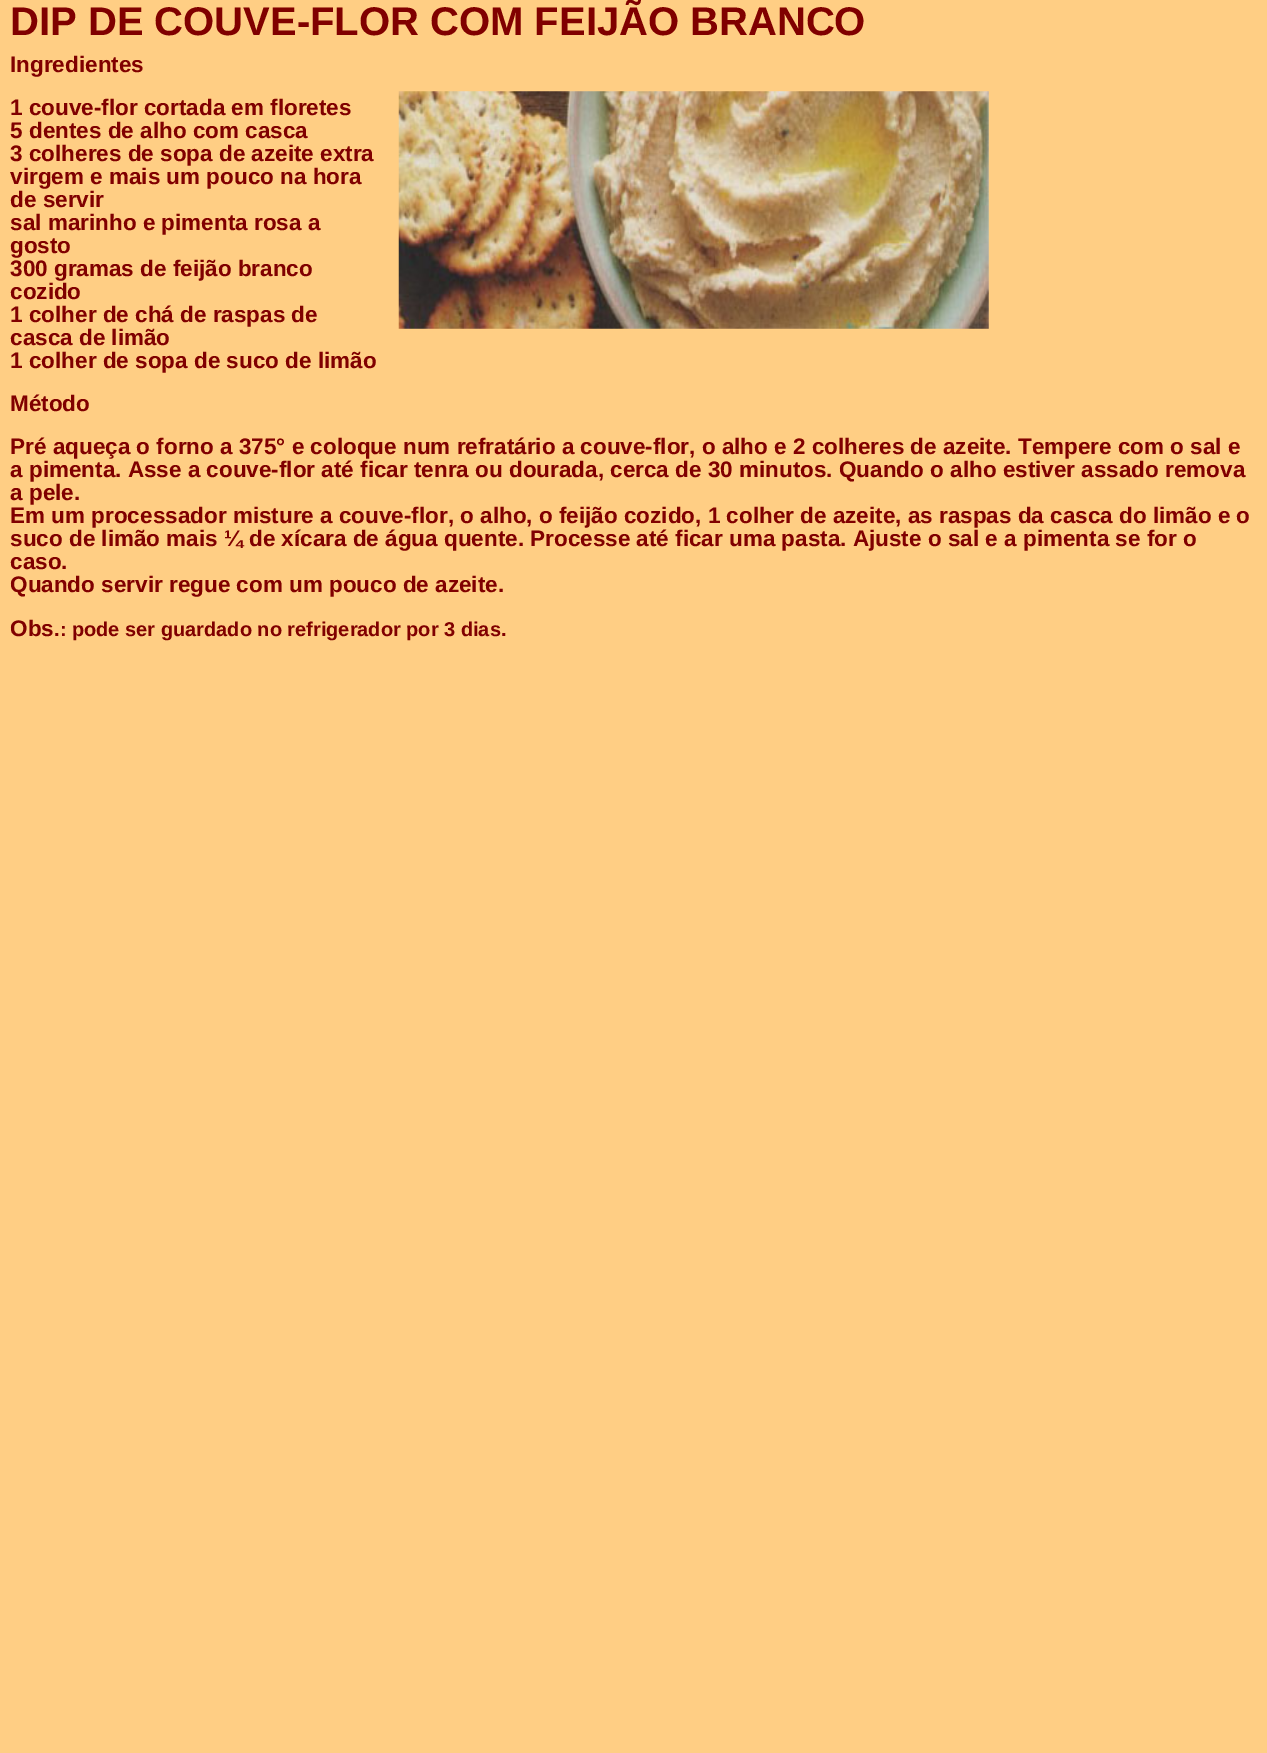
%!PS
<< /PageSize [1267 1753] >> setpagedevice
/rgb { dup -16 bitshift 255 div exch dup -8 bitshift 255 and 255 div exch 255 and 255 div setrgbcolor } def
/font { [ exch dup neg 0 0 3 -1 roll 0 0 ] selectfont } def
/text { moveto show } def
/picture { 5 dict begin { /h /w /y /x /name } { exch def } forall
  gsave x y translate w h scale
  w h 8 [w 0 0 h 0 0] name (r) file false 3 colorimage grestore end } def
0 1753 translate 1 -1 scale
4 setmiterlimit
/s1 { /LiberationSans-Bold 40 font 16#800000 rgb } def
/s2 { /LiberationSans-Bold 22.5 font 16#800000 rgb } def
/s3 { /LiberationSans-Bold 20 font 16#800000 rgb } def
16#FFCE84 rgb
0 0 1267 1753 rectfill
s1
(DIP DE COUVE-FLOR COM FEIJÃO BRANCO) 10 35 text
s2
(Ingredientes) 10 72 text
(1 couve-flor cortada em floretes) 10 115 text
(5 dentes de alho com casca) 10 138 text
(3 colheres de sopa de azeite extra) 10 161 text
(virgem e mais um pouco na hora) 10 184 text
(de servir) 10 207 text
(sal marinho e pimenta rosa a) 10 230 text
(gosto) 10 253 text
(300 gramas de feijão branco) 10 276 text
(cozido) 10 299 text
(1 colher de chá de raspas de) 10 322 text
(casca de limão) 10 345 text
(1 colher de sopa de suco de limão) 10 368 text
(pic1.raw) 398 91 591 238 picture
(Método) 10 411 text
(Pré aqueça o forno a 375° e coloque num refratário a couve-flor, o alho e 2 colheres de azeite. Tempere com o sal e) 10 454 text
(a pimenta. Asse a couve-flor até ficar tenra ou dourada, cerca de 30 minutos. Quando o alho estiver assado remova) 10 477 text
(a pele.) 10 500 text
(Em um processador misture a couve-flor, o alho, o feijão cozido, 1 colher de azeite, as raspas da casca do limão e o) 10 523 text
(suco de limão mais ¼ de xícara de água quente. Processe até ficar uma pasta. Ajuste o sal e a pimenta se for o) 10 546 text
(caso.) 10 569 text
(Quando servir regue com um pouco de azeite.) 10 592 text
(Obs) 10 636 text
s3
(.: pode ser guardado no refrigerador por 3 dias.) 54 636 text
showpage
